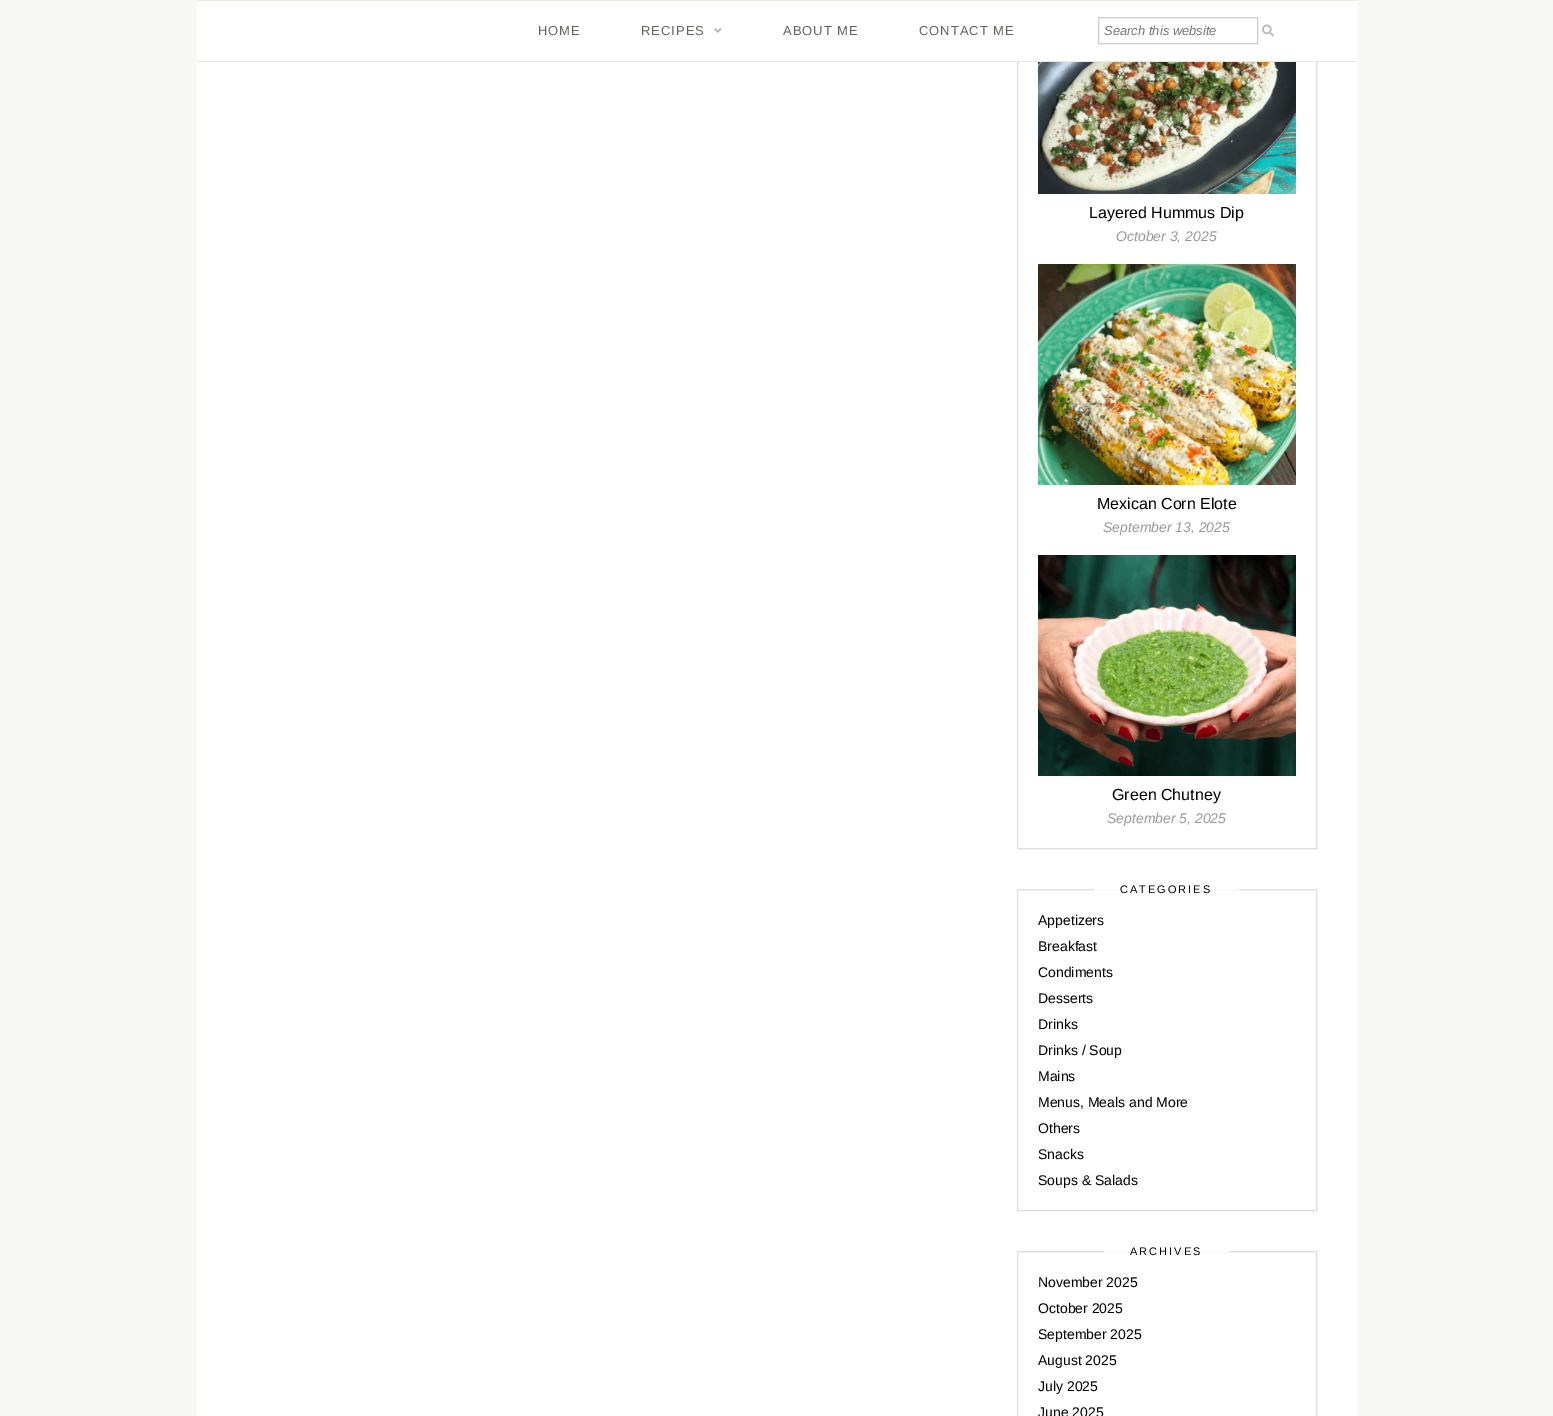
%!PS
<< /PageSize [1553 1416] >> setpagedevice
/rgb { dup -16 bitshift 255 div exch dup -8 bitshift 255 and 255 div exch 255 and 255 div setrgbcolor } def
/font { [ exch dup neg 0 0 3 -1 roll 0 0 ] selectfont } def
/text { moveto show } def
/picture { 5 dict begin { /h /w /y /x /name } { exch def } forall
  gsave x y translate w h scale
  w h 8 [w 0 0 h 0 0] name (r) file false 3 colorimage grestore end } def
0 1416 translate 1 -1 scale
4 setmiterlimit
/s1 { /LiberationSans-Italic 13 font 16#757575 rgb } def
/s2 { /LiberationSans-Regular 16 font 16#000000 rgb } def
/s3 { /LiberationSans-Italic 14 font 16#999999 rgb } def
/s4 { /LiberationSans-Regular 14 font 16#000000 rgb } def
16#F7F7F3 rgb
0 0 1553 1416 rectfill
16#FFFFFF rgb
197 62 1160 1354 rectfill
16#DDDDDD rgb
1017.5 -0.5 299 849 rectstroke
16#FFFFFF rgb
197 1 1160 60 rectfill
16#EAE8E0 rgb
197 0 1160 1 rectfill
197 61 1160 1 rectfill
/LiberationSans-Regular 13 font
16#65625D rgb
538 35 moveto 1 0 (HOME) ashow
641 35 moveto 1 0 (RECIPES) ashow
(pic1.raw) 714 28 8 5 picture
783 35 moveto 1 0 (ABOUT ME) ashow
919 35 moveto 1 0 (CONTACT ME) ashow
16#CCCCCC rgb
1098.5 17.5 159 26 rectstroke
s1
(Search this website) 1104 35 text
(pic2.raw) 1262 24 12 13 picture
(pic3.raw) 1038 62 258 132 picture
s2
(Layered Hummus Dip) 1089 218 text
s3
(October 3, 2025) 1116 241 text
(pic4.raw) 1038 264 258 221 picture
s2
(Mexican Corn Elote) 1097 509 text
s3
(September 13, 2025) 1103 532 text
(pic5.raw) 1038 555 258 221 picture
s2
(Green Chutney) 1112 800 text
s3
(September 5, 2025) 1107 823 text
16#DDDDDD rgb
1017.5 889.5 299 321 rectstroke
16#FFFFFF rgb
1038 889 258 1 rectfill
16#DDDDDD rgb
1038 889 56 1 rectfill
/LiberationSans-Regular 11 font
16#000000 rgb
1120 893 moveto 2 0 (CATEGORIES) ashow
16#DDDDDD rgb
1239 889 57 1 rectfill
s4
(Appetizers) 1038 925 text
(Breakfast) 1038 951 text
(Condiments) 1038 977 text
(Desserts) 1038 1003 text
(Drinks) 1038 1029 text
(Drinks / Soup) 1038 1055 text
(Mains) 1038 1081 text
(Menus, Meals and More) 1038 1107 text
(Others) 1038 1133 text
(Snacks) 1038 1159 text
(Soups & Salads) 1038 1185 text
16#DDDDDD rgb
1017.5 1251.5 299 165 rectstroke
16#FFFFFF rgb
1038 1251 258 1 rectfill
16#DDDDDD rgb
1038 1251 66 1 rectfill
/LiberationSans-Regular 11 font
16#000000 rgb
1130 1255 moveto 2 0 (ARCHIVES) ashow
16#DDDDDD rgb
1229 1251 67 1 rectfill
s4
(November 2025) 1038 1287 text
(October 2025) 1038 1313 text
(September 2025) 1038 1339 text
(August 2025) 1038 1365 text
(July 2025) 1038 1391 text
(June 2025) 1038 1417 text
showpage
